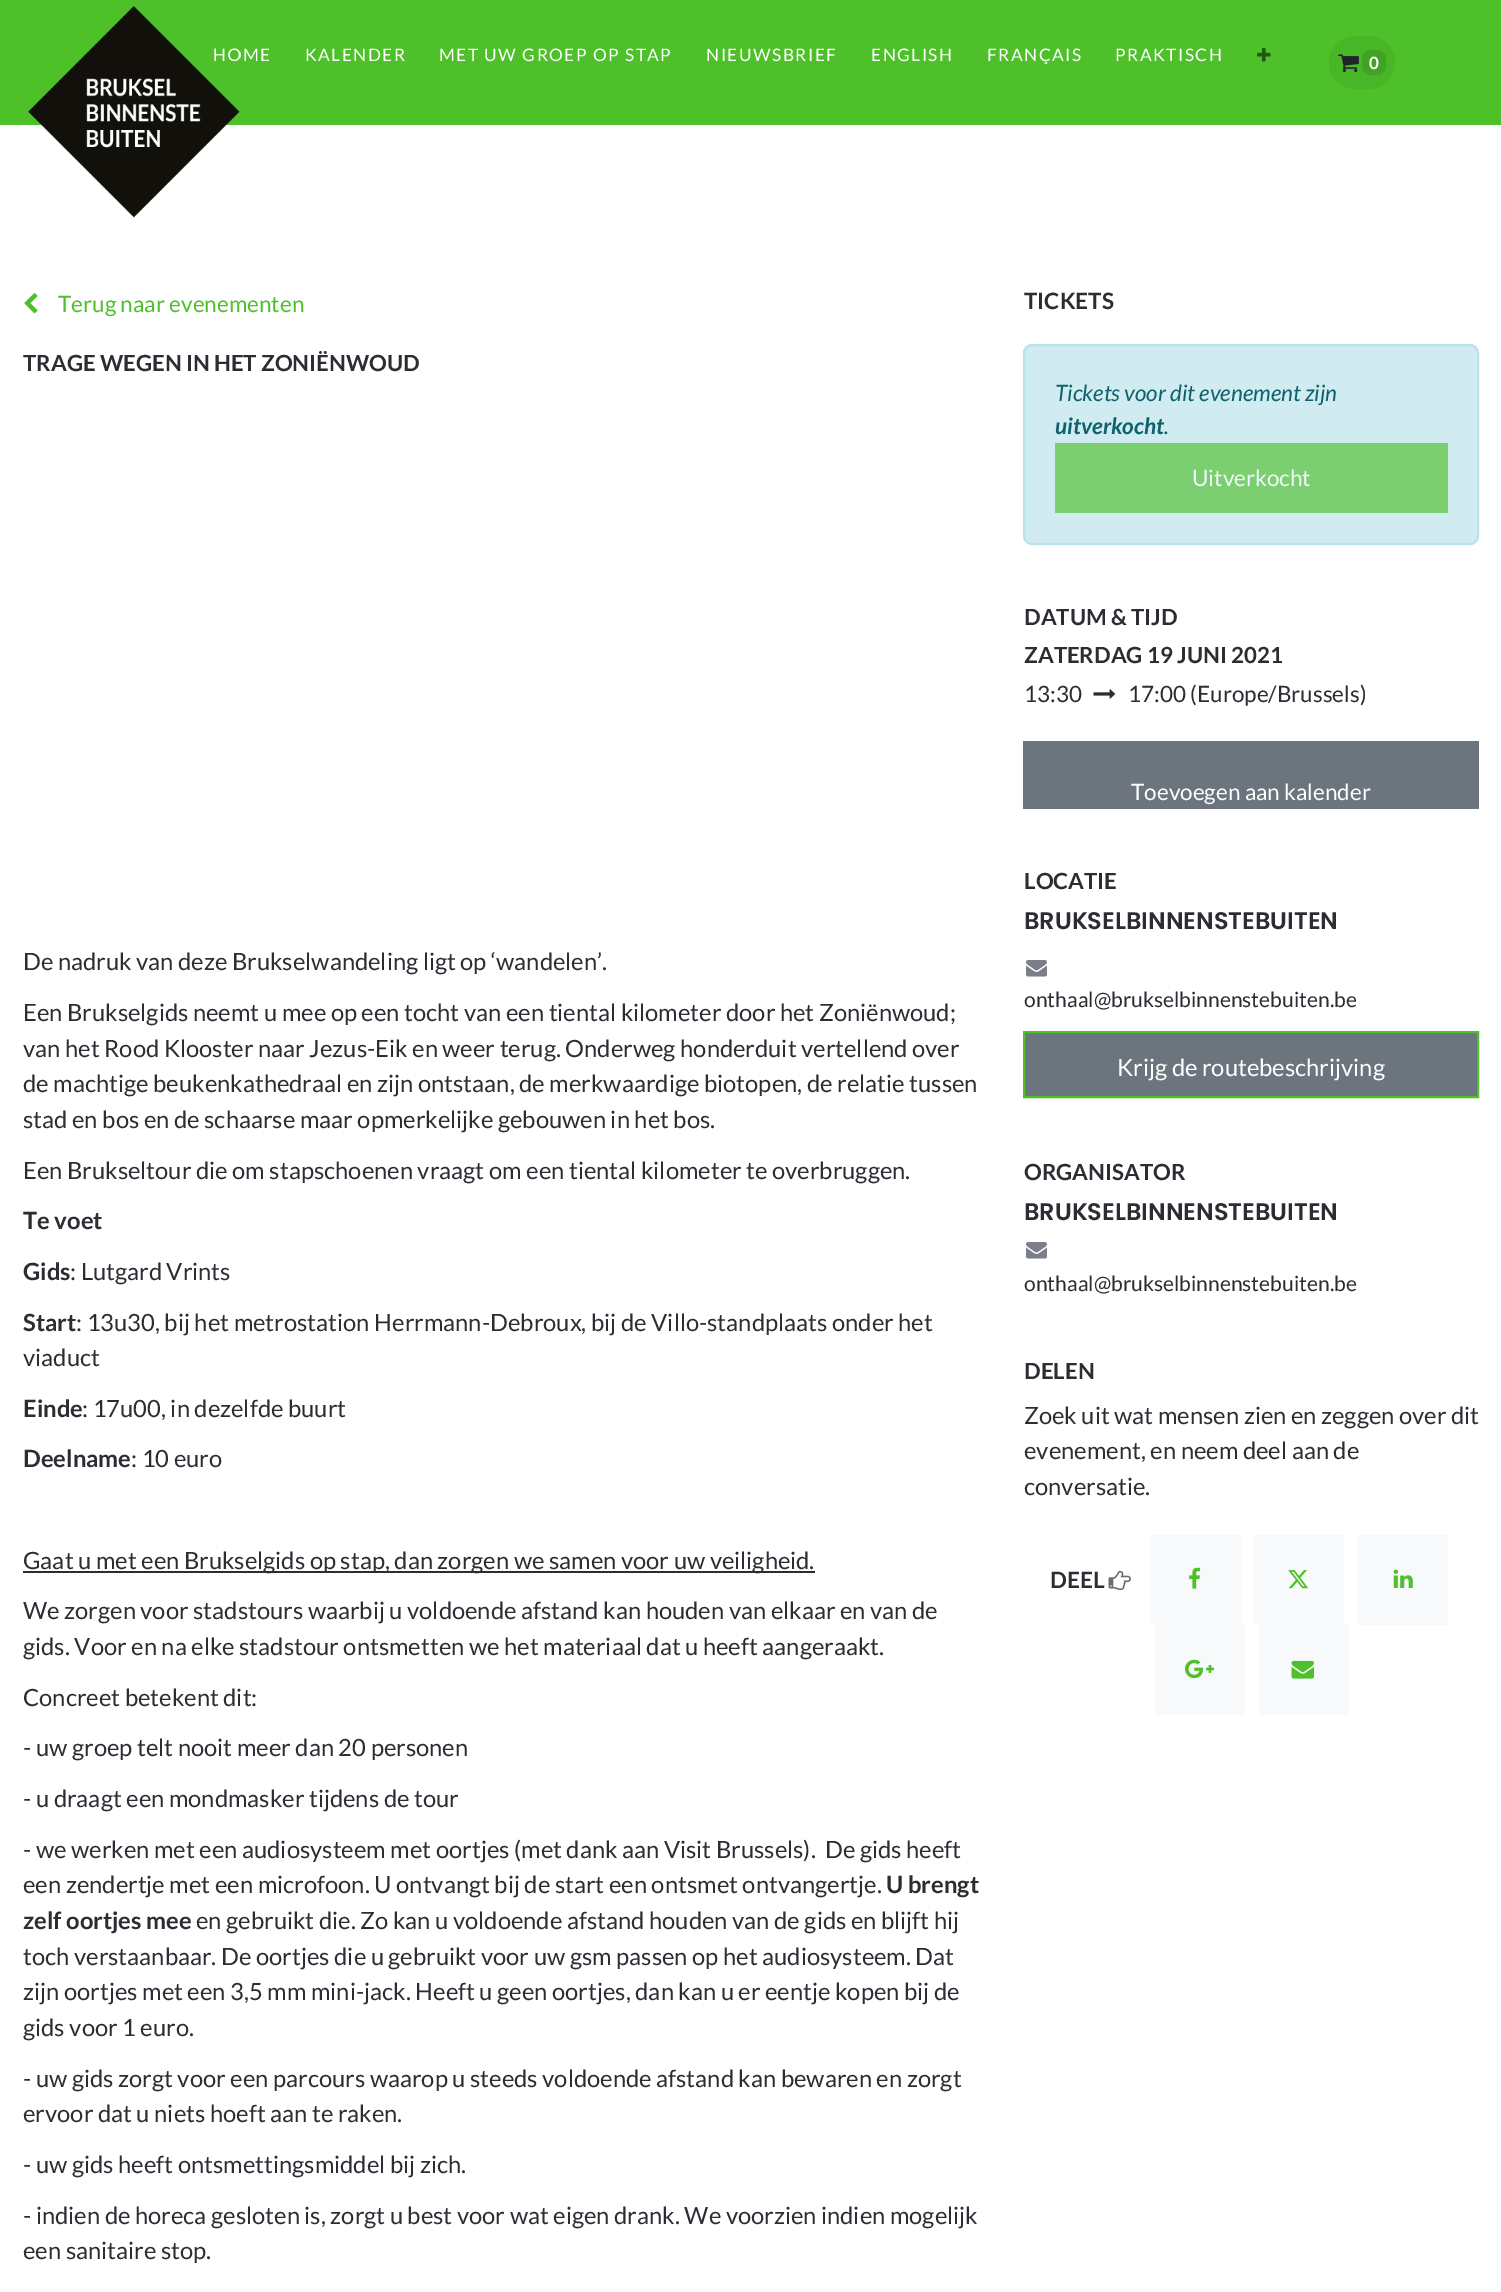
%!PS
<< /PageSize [1501 2292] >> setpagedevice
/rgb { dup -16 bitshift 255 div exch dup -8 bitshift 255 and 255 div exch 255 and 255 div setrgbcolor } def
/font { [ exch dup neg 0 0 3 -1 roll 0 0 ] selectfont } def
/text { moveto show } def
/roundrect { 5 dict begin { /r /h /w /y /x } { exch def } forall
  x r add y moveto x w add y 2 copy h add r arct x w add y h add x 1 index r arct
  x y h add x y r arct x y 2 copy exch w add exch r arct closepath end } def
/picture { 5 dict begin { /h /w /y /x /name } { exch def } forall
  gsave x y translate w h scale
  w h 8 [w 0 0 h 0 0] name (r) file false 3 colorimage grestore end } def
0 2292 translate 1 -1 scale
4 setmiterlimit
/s1 { /Lato-Bold 17 font 16#FFFFFF rgb } def
/s2 { /Lato-Regular 22.5 font 16#4DC02A rgb } def
/s3 { /Lato-Bold 22.25 font 16#2B2D33 rgb } def
/s4 { /Lato-Regular 23.75 font 16#2B2D33 rgb } def
/s5 { /Lato-Bold 23.75 font 16#2B2D33 rgb } def
/s6 { /Lato-Bold 22.5 font 16#2B2D33 rgb } def
/s7 { /Lato-Italic 22.5 font 16#0E616E rgb } def
/s8 { /Lato-BoldItalic 22.5 font 16#0E616E rgb } def
/s9 { /Lato-Regular 22.5 font 16#EFF8FA rgb } def
/s10 { /Lato-Regular 22.5 font 16#2B2D33 rgb } def
/s11 { /Lato-Regular 22.5 font 16#FFFFFF rgb } def
/s12 { /Poppins-SemiBold 24 font 16#2B2D33 rgb } def
/s13 { /Lato-Regular 21 font 16#2B2D33 rgb } def
/s14 { /Lato-Regular 23.75 font 16#FFFFFF rgb } def
16#FFFFFF rgb
0 0 1501 2292 rectfill
16#4DC02A rgb
0 0 1501 125 rectfill
/Lato-Regular 17.25 font
16#FFFFFF rgb
213 61 moveto 1.5 0 (HOME) ashow
(pic1.raw) 28 6 212 212 picture
305 61 moveto 1.5 0 (KALENDER) ashow
439 61 moveto 1.5 0 (MET UW GROEP OP STAP) ashow
706 61 moveto 1.5 0 (NIEUWSBRIEF) ashow
871 61 moveto 1.5 0 (ENGLISH) ashow
987 61 moveto 1.5 0 (FRANÇAIS) ashow
1115 61 moveto 1.5 0 (PRAKTISCH) ashow
(pic2.raw) 1257 47 14 15 picture
16#49B628 rgb
1329 36 66 53 26.5 roundrect fill
(pic3.raw) 1338 54 21 19 picture
16#41A324 rgb
1362 50 24 25 9 roundrect fill
s1
(0) 1369 69 text
(pic4.raw) 24 293 14 21 picture
s2
(Terug naar evenementen) 58 312 text
s3
(TRAGE WEGEN IN HET ZONIËNWOUD) 23 371 text
s4
(De nadruk van deze Brukselwandeling ligt op ‘wandelen’.) 23 970 text
(Een Brukselgids neemt u mee op een tocht van een tiental kilometer door het Zoniënwoud;) 23 1021 text
(van het Rood Klooster naar Jezus-Eik en weer terug. Onderweg honderduit vertellend over) 23 1057 text
(de machtige beukenkathedraal en zijn ontstaan, de merkwaardige biotopen, de relatie tussen) 23 1092 text
(stad en bos en de schaarse maar opmerkelijke gebouwen in het bos.) 23 1128 text
(Een Brukseltour die om stapschoenen vraagt om een tiental kilometer te overbruggen.) 23 1179 text
s5
(Te voet) 23 1229 text
(Gids) 23 1280 text
s4
(: Lutgard Vrints) 70 1280 text
s5
(Start) 23 1331 text
s4
(: 13u30, bij het metrostation Herrmann-Debroux, bij de Villo-standplaats onder het) 76 1331 text
(viaduct) 23 1366 text
s5
(Einde) 23 1417 text
s4
(: 17u00, in dezelfde buurt) 82 1417 text
s5
(Deelname) 23 1467 text
s4
(: 10 euro) 131 1467 text
23 1571 792 2 rectfill
(Gaat u met een Brukselgids op stap, dan zorgen we samen voor uw veiligheid.) 23 1569 text
(We zorgen voor stadstours waarbij u voldoende afstand kan houden van elkaar en van de) 23 1619 text
(gids. Voor en na elke stadstour ontsmetten we het materiaal dat u heeft aangeraakt.) 23 1655 text
(Concreet betekent dit:) 23 1706 text
(- uw groep telt nooit meer dan 20 personen) 23 1756 text
(- u draagt een mondmasker tijdens de tour) 23 1807 text
(- we werken met een audiosysteem met oortjes \(met dank aan Visit Brussels\).  De gids heeft) 23 1858 text
(een zendertje met een microfoon. U ontvangt bij de start een ontsmet ontvangertje.) 23 1893 text
s5
(U brengt) 886 1893 text
(zelf oortjes mee) 23 1929 text
s4
(en gebruikt die. Zo kan u voldoende afstand houden van de gids en blijft hij) 196 1929 text
(toch verstaanbaar. De oortjes die u gebruikt voor uw gsm passen op het audiosysteem. Dat) 23 1965 text
(zijn oortjes met een 3,5 mm mini-jack. Heeft u geen oortjes, dan kan u er eentje kopen bij de) 23 2000 text
(gids voor 1 euro.) 23 2036 text
(- uw gids zorgt voor een parcours waarop u steeds voldoende afstand kan bewaren en zorgt) 23 2087 text
(ervoor dat u niets hoeft aan te raken.) 23 2122 text
(- uw gids heeft ontsmettingsmiddel bij zich.) 23 2173 text
(- indien de horeca gesloten is, zorgt u best voor wat eigen drank. We voorzien indien mogelijk) 23 2224 text
(een sanitaire stop.) 23 2259 text
s6
(TICKETS) 1024 309 text
16#D1ECF1 rgb
1024 345 454 199 8 roundrect gsave fill grestore
16#B9E3EA rgb
2 setlinewidth
stroke
s7
(Tickets voor dit evenement zijn) 1055 401 text
s8
(uitverkocht) 1055 434 text
s7
(.) 1164 434 text
16#7BCF70 rgb
1055 443 393 70 rectfill
s9
(Uitverkocht) 1192 486 text
s3
(DATUM & TIJD) 1024 625 text
(ZATERDAG 19 JUNI 2021) 1024 663 text
s10
(13:30) 1024 702 text
(pic5.raw) 1093 689 23 10 picture
(17:00 \(Europe/Brussels\)) 1128 702 text
16#6C757D rgb
1023 741 456 68 rectfill
s11
(Toevoegen aan kalender) 1131 800 text
s3
(LOCATIE) 1024 889 text
s12
(BRUKSELBINNENSTEBUITEN) 1024 929 text
(pic6.raw) 1026 960 21 17 picture
s13
(onthaal@brukselbinnenstebuiten.be) 1024 1007 text
16#6C757D rgb
1024 1032 moveto 1478 1032 lineto 1478 1097 lineto 1024 1097 lineto closepath gsave fill grestore
16#4DC02A rgb
stroke
s14
(Krijg de routebeschrijving) 1117 1076 text
s3
(ORGANISATOR) 1024 1180 text
s12
(BRUKSELBINNENSTEBUITEN) 1024 1220 text
(pic6.raw) 1026 1242 21 17 picture
s13
(onthaal@brukselbinnenstebuiten.be) 1024 1291 text
s3
(DELEN) 1024 1379 text
s4
(Zoek uit wat mensen zien en zeggen over dit) 1024 1424 text
(evenement, en neem deel aan de) 1024 1459 text
(conversatie.) 1024 1495 text
s6
(DEEL) 1050 1588 text
(pic7.raw) 1108 1570 23 21 picture
16#F8F9FA rgb
1151 1535 90 90 rectfill
(pic8.raw) 1189 1567 12 22 picture
1254 1535 90 90 rectfill
(pic9.raw) 1288 1570 21 19 picture
1358 1535 90 90 rectfill
(pic10.raw) 1393 1569 20 19 picture
1155 1625 90 90 rectfill
(pic11.raw) 1185 1659 29 20 picture
1259 1625 90 90 rectfill
(pic12.raw) 1291 1660 23 19 picture
showpage
